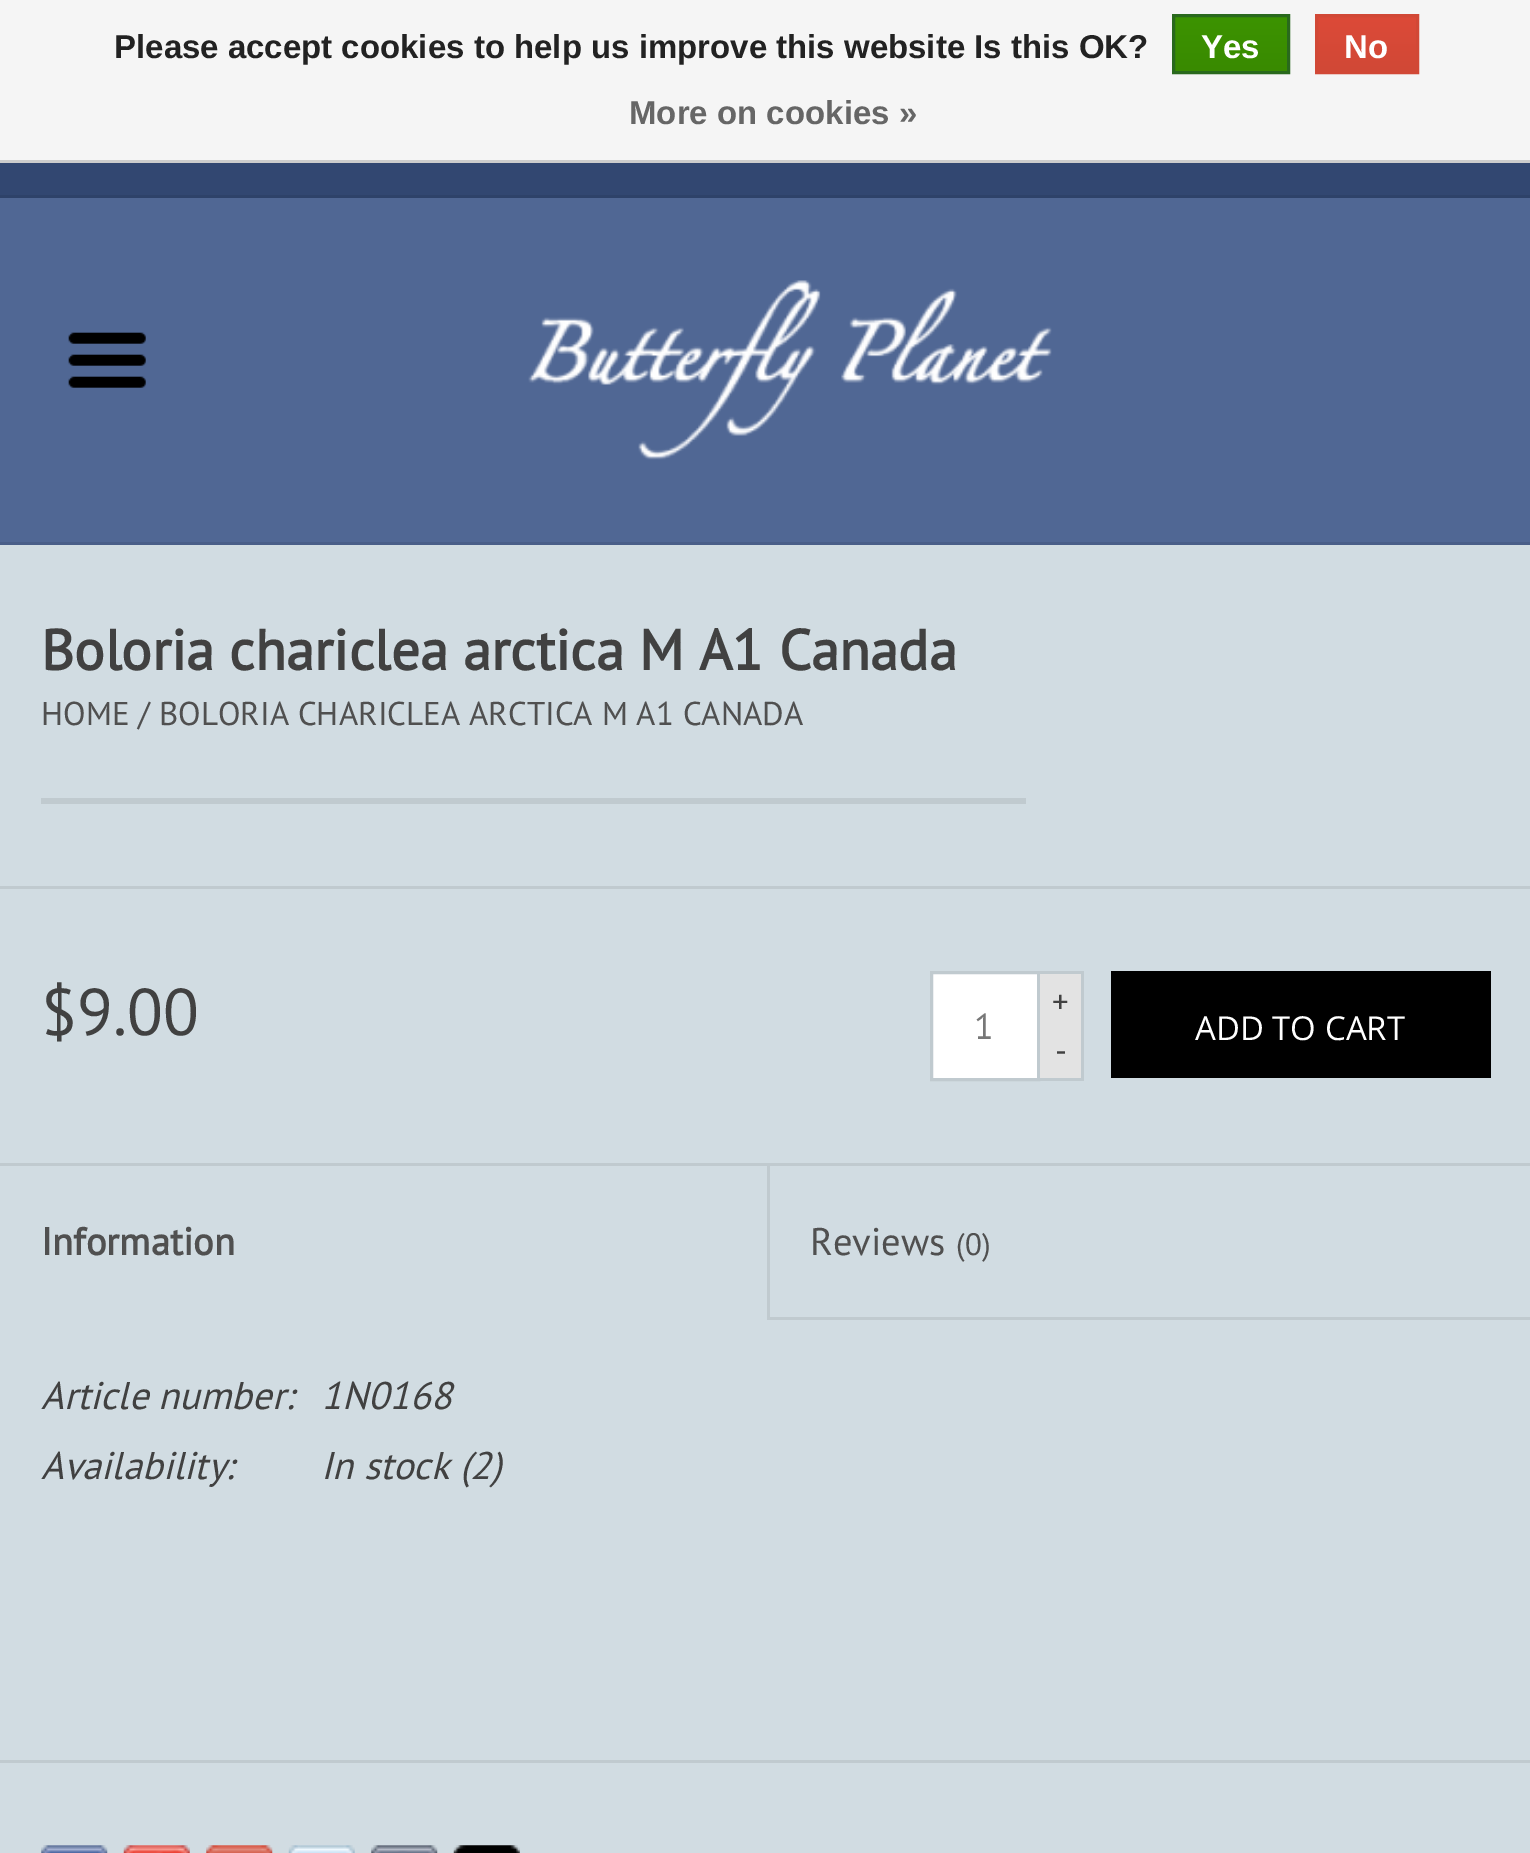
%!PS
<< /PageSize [1530 1853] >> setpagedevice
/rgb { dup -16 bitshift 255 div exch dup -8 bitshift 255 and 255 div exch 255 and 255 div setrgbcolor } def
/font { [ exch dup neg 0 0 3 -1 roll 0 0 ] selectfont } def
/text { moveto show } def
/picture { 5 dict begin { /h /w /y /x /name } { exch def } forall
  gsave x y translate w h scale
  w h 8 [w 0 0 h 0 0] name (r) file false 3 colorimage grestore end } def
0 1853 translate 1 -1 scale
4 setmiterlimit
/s1 { /LiberationSans-Bold 33 font 16#222222 rgb } def
/s2 { /LiberationSans-Bold 33 font 16#FFFFFF rgb } def
/s3 { /LiberationSans-Bold 33 font 16#666666 rgb } def
/s4 { /PTSans-Bold 56.75 font 16#414141 rgb } def
/s5 { /PTSans-Regular 33 font 16#505050 rgb } def
/s6 { /PTSans-Regular 66 font 16#414141 rgb } def
/s7 { /PTSans-Regular 36 font 16#777777 rgb } def
/s8 { /PTSans-Regular 33 font 16#414141 rgb } def
/s9 { /OpenSans-Regular 33 font 16#FFFFFF rgb } def
/s10 { /PTSans-Bold 38.5 font 16#505050 rgb } def
/s11 { /PTSans-Regular 38.5 font 16#505050 rgb } def
/s12 { /PTSans-Regular 31 font 16#505050 rgb } def
/s13 { /PTSans-Italic 38.5 font 16#414141 rgb } def
16#506794 rgb
0 0 1530 1853 rectfill
16#F5F5F5 rgb
0 0 1530 160 rectfill
16#CCCCCC rgb
0 160 1530 3 rectfill
s1
(Please accept cookies to help us improve this website Is this OK?) 114 58 text
gsave 1175 17 moveto 1287 17 lineto 1287 71 lineto 1175 71 lineto closepath clip newpath
<< /ShadingType 2 /ColorSpace /DeviceRGB /Coords [1231 16 1231 72] /Extend [true true] /Function << /FunctionType 2 /Domain [0 1] /C0 [0.235 0.576 0] /C1 [0.224 0.541 0] /N 1 >> >> shfill grestore
16#29691D rgb
3 setlinewidth
1173.5 15.5 115 57 rectstroke
s2
(Yes) 1201 58 text
gsave 1318 17 moveto 1416 17 lineto 1416 71 lineto 1318 71 lineto closepath clip newpath
<< /ShadingType 2 /ColorSpace /DeviceRGB /Coords [1367 16 1367 72] /Extend [true true] /Function << /FunctionType 2 /Domain [0 1] /C0 [0.863 0.29 0.22] /C1 [0.82 0.282 0.212] /N 1 >> >> shfill grestore
16#D14836 rgb
1316.5 15.5 101 57 rectstroke
s2
(No) 1344 58 text
s3
(More on cookies ») 629 124 text
16#324771 rgb
0 163 1530 32 rectfill
16#2E4269 rgb
0 195 1530 3 rectfill
16#495E88 rgb
0 542 1530 3 rectfill
(pic1.raw) 528 280 524 180 picture
(pic2.raw) 68 332 78 56 picture
16#D1DCE2 rgb
0 545 1530 1308 rectfill
s4
(Boloria chariclea arctica M A1 Canada) 41 670 text
s5
(HOME / BOLORIA CHARICLEA ARCTICA M A1 CANADA) 41 725 text
16#C0CACF rgb
41 798 985 6 rectfill
0 886 1530 3 rectfill
s6
($9.00) 41 1035 text
16#FFFFFF rgb
931.5 972.5 moveto 1038.5 972.5 lineto 1038.5 1079.5 lineto 931.5 1079.5 lineto closepath gsave fill grestore
16#C0CACF rgb
stroke
s7
(1) 974 1039 text
16#E3E3E3 rgb
1040 974 41 104 rectfill
16#C0CACF rgb
1040 971 44 3 rectfill
1081 971 3 110 rectfill
1040 1078 44 3 rectfill
s8
(+) 1052 1013 text
(-) 1055 1062 text
16#000000 rgb
1111 971 380 107 rectfill
s9
(ADD TO CART) 1195 1040 text
16#C0CACF rgb
0 1163 1530 3 rectfill
s10
(Information) 41 1255 text
16#C0CACF rgb
767 1317 763 3 rectfill
767 1166 3 154 rectfill
s11
(Reviews) 810 1255 text
s12
(\(0\)) 956 1255 text
s13
(Article number:) 41 1409 text
(1N0168) 321 1409 text
(Availability:) 41 1479 text
(In stock \(2\)) 321 1479 text
16#C0CACF rgb
0 1760 1530 3 rectfill
(pic3.raw) 41 1845 67 8 picture
(pic4.raw) 123 1845 67 8 picture
(pic5.raw) 206 1845 67 8 picture
(pic6.raw) 288 1845 67 8 picture
(pic7.raw) 371 1845 67 8 picture
(pic8.raw) 453 1845 67 8 picture
showpage
